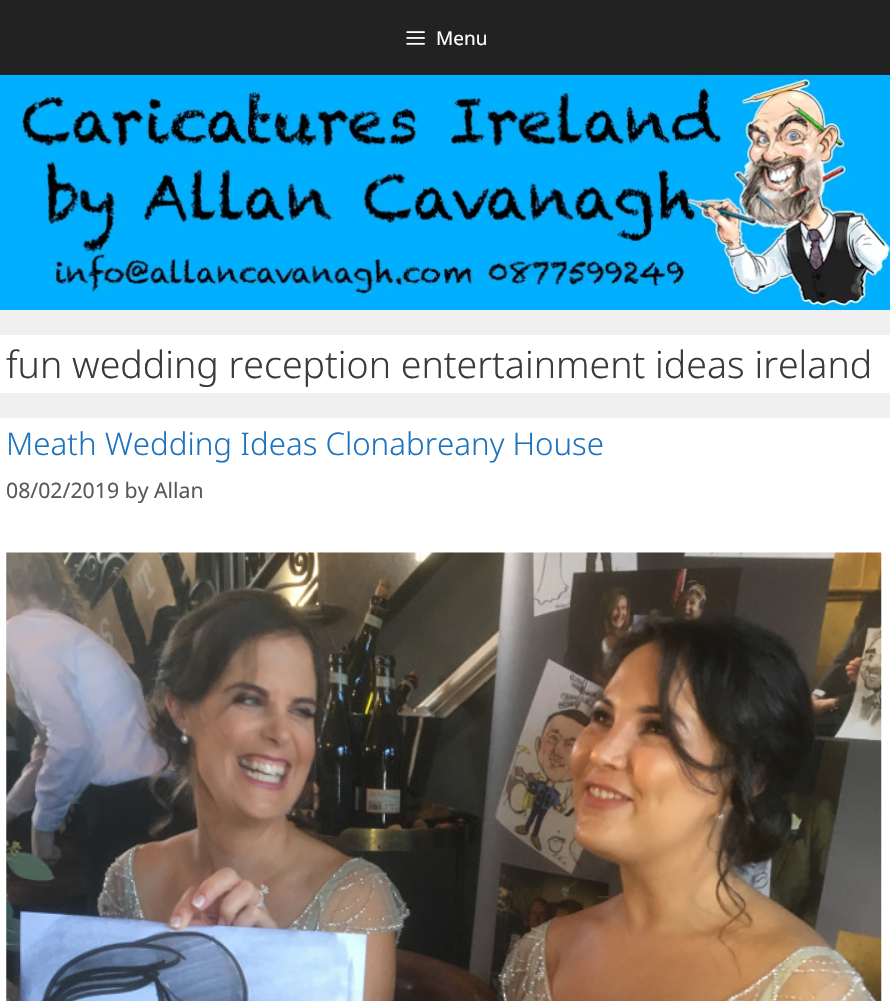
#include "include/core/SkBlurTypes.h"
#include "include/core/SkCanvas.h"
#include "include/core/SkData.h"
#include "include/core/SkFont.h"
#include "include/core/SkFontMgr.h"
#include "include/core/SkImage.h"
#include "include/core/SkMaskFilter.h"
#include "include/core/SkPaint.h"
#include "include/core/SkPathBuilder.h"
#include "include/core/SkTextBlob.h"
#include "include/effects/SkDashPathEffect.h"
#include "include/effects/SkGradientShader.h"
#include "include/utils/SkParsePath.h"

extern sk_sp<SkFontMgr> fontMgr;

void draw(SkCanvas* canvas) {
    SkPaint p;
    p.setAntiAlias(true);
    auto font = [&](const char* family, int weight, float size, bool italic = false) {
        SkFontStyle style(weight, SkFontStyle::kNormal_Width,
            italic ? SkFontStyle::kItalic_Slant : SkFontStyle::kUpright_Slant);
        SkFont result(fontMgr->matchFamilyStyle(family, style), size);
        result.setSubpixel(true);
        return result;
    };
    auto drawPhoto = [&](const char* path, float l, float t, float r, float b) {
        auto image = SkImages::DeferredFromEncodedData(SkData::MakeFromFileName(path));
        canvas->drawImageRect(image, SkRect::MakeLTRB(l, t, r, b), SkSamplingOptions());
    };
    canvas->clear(0xFFF0F0F0);
    p.setColor(0xFF222222);
    canvas->drawRect(SkRect::MakeLTRB(0, 0, 890, 75), p);
    drawPhoto("media/1.png", 406, 31, 425, 45);
    auto font1 = font("Noto Sans", 400, 19);
    p.setColor(0xFFFFFFFF);
    canvas->drawString("Menu", 436, 45, font1, p);
    p.setColor(0xFF00AFFF);
    canvas->drawRect(SkRect::MakeLTRB(0, 75, 890, 310), p);
    drawPhoto("media/2.png", 16, 75, 890, 309);
    p.setColor(0xFFFFFFFF);
    canvas->drawRect(SkRect::MakeLTRB(0, 335, 890, 393), p);
    auto font2 = font("Noto Sans", 300, 37.5f);
    p.setColor(0xFF3A3A3A);
    canvas->drawString("fun wedding reception entertainment ideas ireland", 6, 378, font2, p);
    p.setColor(0xFFFFFFFF);
    canvas->drawRect(SkRect::MakeLTRB(0, 418, 890, 1001), p);
    auto font3 = font("Noto Sans", 300, 31.25f);
    p.setColor(0xFF1E73BE);
    canvas->drawString("Meath Wedding Ideas Clonabreany House", 6, 455, font3, p);
    auto font4 = font("Noto Sans", 400, 21.25f);
    p.setColor(0xFF595959);
    canvas->drawString("08/02/2019 by Allan", 6, 498, font4, p);
    drawPhoto("media/3.png", 6, 552, 882, 1001);
}
